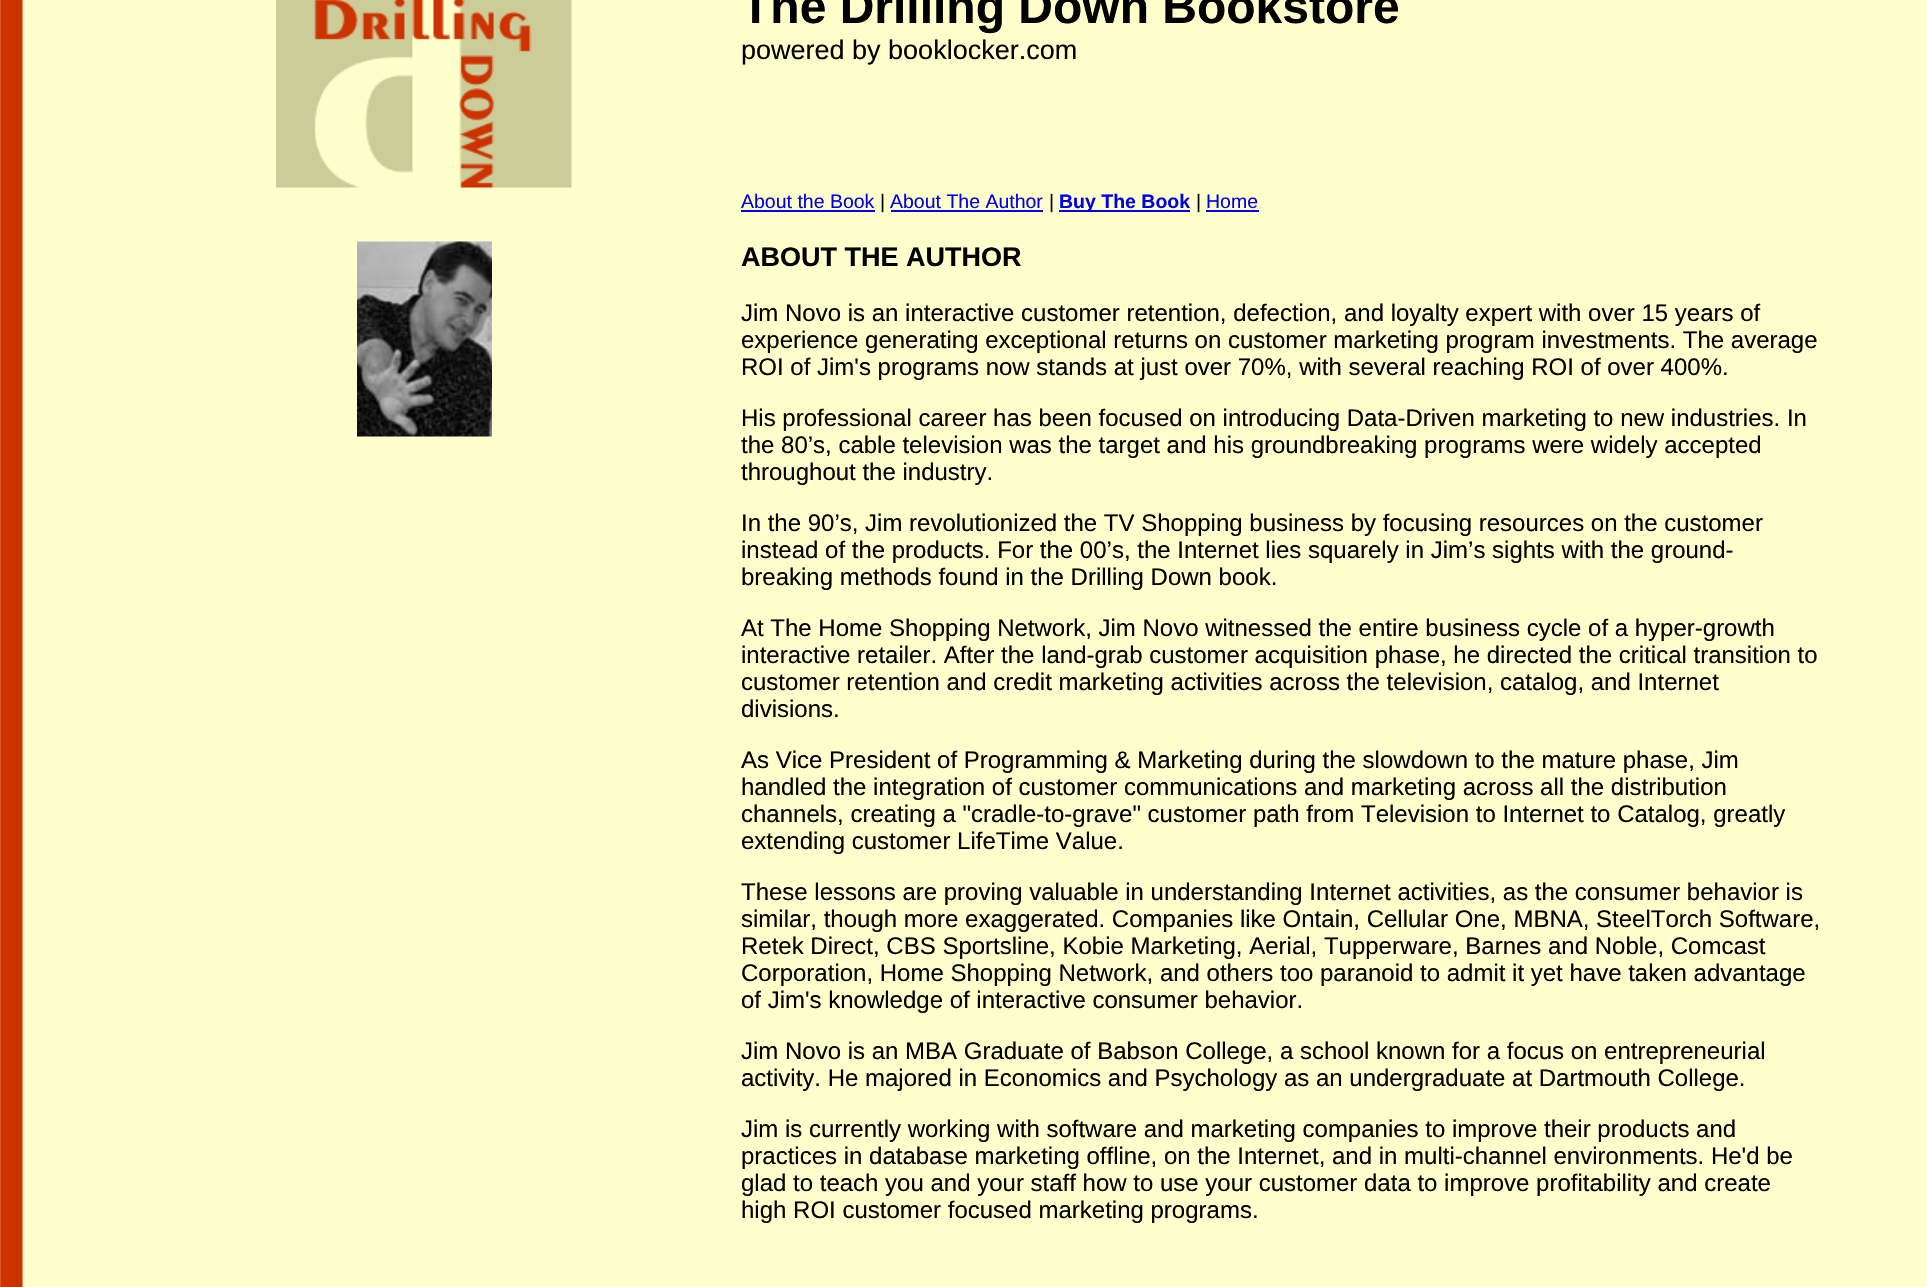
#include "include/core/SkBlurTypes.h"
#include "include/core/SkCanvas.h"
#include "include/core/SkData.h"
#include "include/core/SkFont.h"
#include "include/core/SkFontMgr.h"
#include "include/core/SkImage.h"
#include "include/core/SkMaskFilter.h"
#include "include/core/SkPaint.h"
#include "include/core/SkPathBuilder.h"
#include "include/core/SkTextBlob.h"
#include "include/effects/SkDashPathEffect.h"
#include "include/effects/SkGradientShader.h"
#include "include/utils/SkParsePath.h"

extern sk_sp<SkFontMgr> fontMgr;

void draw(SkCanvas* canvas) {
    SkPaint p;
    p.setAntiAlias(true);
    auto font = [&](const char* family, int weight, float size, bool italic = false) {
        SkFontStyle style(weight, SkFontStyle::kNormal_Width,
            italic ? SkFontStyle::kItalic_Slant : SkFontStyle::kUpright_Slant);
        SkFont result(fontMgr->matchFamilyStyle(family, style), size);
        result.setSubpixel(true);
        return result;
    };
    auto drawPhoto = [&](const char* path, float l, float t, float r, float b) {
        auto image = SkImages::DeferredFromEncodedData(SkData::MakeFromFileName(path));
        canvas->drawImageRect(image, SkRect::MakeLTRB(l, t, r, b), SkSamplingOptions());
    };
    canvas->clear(0xFFFFFFCC);
    drawPhoto("media/1.png", 0, 0, 741, 1287);
    drawPhoto("media/2.png", 276, 0, 572, 188);
    auto font1 = font("Liberation Sans", 700, 48);
    p.setColor(0xFF000000);
    canvas->drawString("The Drilling Down Bookstore", 741, 23, font1, p);
    auto font2 = font("Liberation Sans", 400, 27);
    canvas->drawString("powered by booklocker.com", 741, 59, font2, p);
    auto font3 = font("Liberation Sans", 400, 19.5f);
    p.setColor(0xFF0000EE);
    canvas->drawString("About the Book", 741, 208, font3, p);
    canvas->drawRect(SkRect::MakeLTRB(741, 210, 875, 212), p);
    p.setColor(0xFF000000);
    canvas->drawString("|", 880, 208, font3, p);
    p.setColor(0xFF0000EE);
    canvas->drawString("About The Author", 890, 208, font3, p);
    canvas->drawRect(SkRect::MakeLTRB(891, 210, 1043, 212), p);
    p.setColor(0xFF000000);
    canvas->drawString("|", 1049, 208, font3, p);
    p.setColor(0xFF0000EE);
    canvas->drawRect(SkRect::MakeLTRB(1059, 210, 1190, 212), p);
    auto font4 = font("Liberation Sans", 700, 19.5f);
    canvas->drawString("Buy The Book", 1059, 208, font4, p);
    p.setColor(0xFF000000);
    canvas->drawString("|", 1196, 208, font3, p);
    p.setColor(0xFF0000EE);
    canvas->drawString("Home", 1206, 208, font3, p);
    canvas->drawRect(SkRect::MakeLTRB(1206, 210, 1259, 212), p);
    drawPhoto("media/3.png", 357, 241, 492, 437);
    auto font5 = font("Liberation Sans", 700, 27);
    p.setColor(0xFF000000);
    canvas->drawString("ABOUT THE AUTHOR", 741, 266, font5, p);
    auto font6 = font("Liberation Sans", 400, 24);
    {
        const struct { const char* s; float x, y; } items[] = {
            {"Jim Novo is an interactive customer retention, defection, and loyalty expert with over 15 years of", 741, 321},
            {"experience generating exceptional returns on customer marketing program investments. The average", 741, 348},
            {"ROI of Jim's programs now stands at just over 70%, with several reaching ROI of over 400%.", 741, 375},
            {"His professional career has been focused on introducing Data-Driven marketing to new industries. In", 741, 426},
            {"the 80’s, cable television was the target and his groundbreaking programs were widely accepted", 741, 453},
            {"throughout the industry.", 741, 480},
            {"In the 90’s, Jim revolutionized the TV Shopping business by focusing resources on the customer", 741, 531},
            {"instead of the products. For the 00’s, the Internet lies squarely in Jim’s sights with the ground-", 741, 558},
            {"breaking methods found in the Drilling Down book.", 741, 585},
            {"At The Home Shopping Network, Jim Novo witnessed the entire business cycle of a hyper-growth", 741, 636},
            {"interactive retailer. After the land-grab customer acquisition phase, he directed the critical transition to", 741, 663},
            {"customer retention and credit marketing activities across the television, catalog, and Internet", 741, 690},
            {"divisions.", 741, 717},
            {"As Vice President of Programming & Marketing during the slowdown to the mature phase, Jim", 741, 768},
            {"handled the integration of customer communications and marketing across all the distribution", 741, 795},
            {"channels, creating a \"cradle-to-grave\" customer path from Television to Internet to Catalog, greatly", 741, 822},
            {"extending customer LifeTime Value.", 741, 849},
            {"These lessons are proving valuable in understanding Internet activities, as the consumer behavior is", 741, 900},
            {"similar, though more exaggerated. Companies like Ontain, Cellular One, MBNA, SteelTorch Software,", 741, 927},
            {"Retek Direct, CBS Sportsline, Kobie Marketing, Aerial, Tupperware, Barnes and Noble, Comcast", 741, 954},
            {"Corporation, Home Shopping Network, and others too paranoid to admit it yet have taken advantage", 741, 981},
            {"of Jim's knowledge of interactive consumer behavior.", 741, 1008},
            {"Jim Novo is an MBA Graduate of Babson College, a school known for a focus on entrepreneurial", 741, 1059},
            {"activity. He majored in Economics and Psychology as an undergraduate at Dartmouth College.", 741, 1086},
            {"Jim is currently working with software and marketing companies to improve their products and", 741, 1137},
            {"practices in database marketing offline, on the Internet, and in multi-channel environments. He'd be", 741, 1164},
            {"glad to teach you and your staff how to use your customer data to improve profitability and create", 741, 1191},
            {"high ROI customer focused marketing programs.", 741, 1218},
        };
        for (auto [s, x, y] : items) {
            canvas->drawString(s, x, y, font6, p);
        }
    }
}
